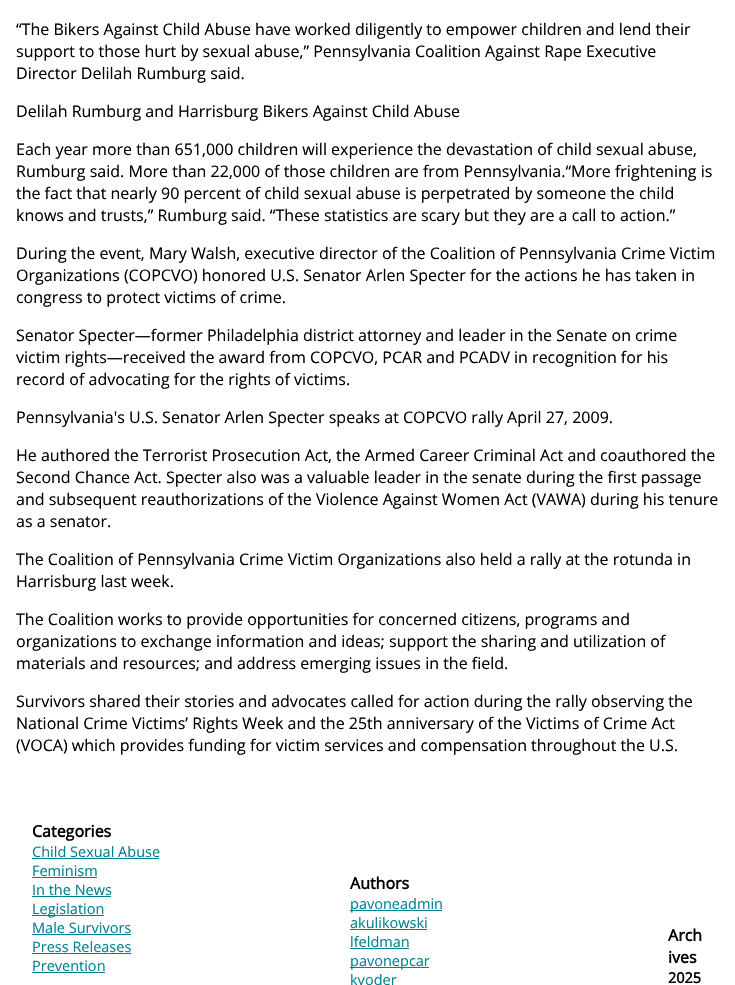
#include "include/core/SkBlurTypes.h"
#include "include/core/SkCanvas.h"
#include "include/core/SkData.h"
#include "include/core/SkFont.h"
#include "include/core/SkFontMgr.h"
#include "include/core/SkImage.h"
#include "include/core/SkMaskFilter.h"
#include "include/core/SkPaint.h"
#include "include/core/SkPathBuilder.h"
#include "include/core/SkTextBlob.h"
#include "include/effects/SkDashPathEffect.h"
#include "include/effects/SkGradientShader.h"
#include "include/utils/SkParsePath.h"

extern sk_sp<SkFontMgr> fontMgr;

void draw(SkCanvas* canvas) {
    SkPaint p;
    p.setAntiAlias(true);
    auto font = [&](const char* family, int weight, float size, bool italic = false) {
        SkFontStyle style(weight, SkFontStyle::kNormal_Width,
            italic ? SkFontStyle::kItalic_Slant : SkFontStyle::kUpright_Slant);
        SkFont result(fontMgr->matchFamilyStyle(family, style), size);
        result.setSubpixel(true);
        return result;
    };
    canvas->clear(0xFFFFFFFF);
    auto font1 = font("Open Sans", 400, 16);
    p.setColor(0xFF000000);
    {
        const struct { const char* s; float x, y; } items[] = {
            {"“The Bikers Against Child Abuse have worked diligently to empower children and lend their", 16, 35},
            {"support to those hurt by sexual abuse,” Pennsylvania Coalition Against Rape Executive", 16, 57},
            {"Director Delilah Rumburg said.", 16, 79},
            {"Delilah Rumburg and Harrisburg Bikers Against Child Abuse", 16, 117},
            {"Each year more than 651,000 children will experience the devastation of child sexual abuse,", 16, 155},
            {"Rumburg said. More than 22,000 of those children are from Pennsylvania.“More frightening is", 16, 177},
            {"the fact that nearly 90 percent of child sexual abuse is perpetrated by someone the child", 16, 199},
            {"knows and trusts,” Rumburg said. “These statistics are scary but they are a call to action.”", 16, 221},
            {"During the event, Mary Walsh, executive director of the Coalition of Pennsylvania Crime Victim", 16, 259},
            {"Organizations (COPCVO) honored U.S. Senator Arlen Specter for the actions he has taken in", 16, 281},
            {"congress to protect victims of crime.", 16, 303},
            {"Senator Specter—former Philadelphia district attorney and leader in the Senate on crime", 16, 341},
            {"victim rights—received the award from COPCVO, PCAR and PCADV in recognition for his", 16, 363},
            {"record of advocating for the rights of victims.", 16, 385},
            {"Pennsylvania's U.S. Senator Arlen Specter speaks at COPCVO rally April 27, 2009.", 16, 423},
            {"He authored the Terrorist Prosecution Act, the Armed Career Criminal Act and coauthored the", 16, 461},
            {"Second Chance Act. Specter also was a valuable leader in the senate during the first passage", 16, 483},
            {"and subsequent reauthorizations of the Violence Against Women Act (VAWA) during his tenure", 16, 505},
            {"as a senator.", 16, 527},
            {"The Coalition of Pennsylvania Crime Victim Organizations also held a rally at the rotunda in", 16, 565},
            {"Harrisburg last week.", 16, 587},
            {"The Coalition works to provide opportunities for concerned citizens, programs and", 16, 625},
            {"organizations to exchange information and ideas; support the sharing and utilization of", 16, 647},
            {"materials and resources; and address emerging issues in the field.", 16, 669},
            {"Survivors shared their stories and advocates called for action during the rally observing the", 16, 707},
            {"National Crime Victims’ Rights Week and the 25th anniversary of the Victims of Crime Act", 16, 729},
            {"(VOCA) which provides funding for victim services and compensation throughout the U.S.", 16, 751},
        };
        for (auto [s, x, y] : items) {
            canvas->drawString(s, x, y, font1, p);
        }
    }
    auto font2 = font("Open Sans", 700, 16);
    canvas->drawString("Categories", 32, 837, font2, p);
    auto font3 = font("Open Sans", 400, 14.5f);
    p.setColor(0xFF008190);
    canvas->drawString("Child Sexual Abuse", 32, 857, font3, p);
    canvas->drawRect(SkRect::MakeLTRB(32, 858, 159, 859), p);
    canvas->drawString("Feminism", 32, 876, font3, p);
    canvas->drawRect(SkRect::MakeLTRB(32, 877, 97, 878), p);
    canvas->drawString("In the News", 32, 895, font3, p);
    canvas->drawRect(SkRect::MakeLTRB(32, 896, 111, 897), p);
    canvas->drawRect(SkRect::MakeLTRB(32, 915, 104, 916), p);
    canvas->drawString("Legislation", 32, 914, font3, p);
    canvas->drawString("Male Survivors", 32, 933, font3, p);
    canvas->drawRect(SkRect::MakeLTRB(32, 934, 131, 935), p);
    canvas->drawString("Press Releases", 32, 952, font3, p);
    canvas->drawRect(SkRect::MakeLTRB(32, 953, 131, 954), p);
    canvas->drawString("Prevention", 32, 971, font3, p);
    canvas->drawRect(SkRect::MakeLTRB(32, 972, 105, 973), p);
    p.setColor(0xFF000000);
    canvas->drawString("Authors", 350, 889, font2, p);
    p.setColor(0xFF008190);
    canvas->drawRect(SkRect::MakeLTRB(350, 910, 442, 911), p);
    canvas->drawString("pavoneadmin", 350, 909, font3, p);
    canvas->drawString("akulikowski", 350, 928, font3, p);
    canvas->drawRect(SkRect::MakeLTRB(350, 929, 427, 930), p);
    canvas->drawString("lfeldman", 350, 947, font3, p);
    canvas->drawRect(SkRect::MakeLTRB(350, 948, 409, 949), p);
    canvas->drawRect(SkRect::MakeLTRB(350, 967, 429, 968), p);
    canvas->drawString("pavonepcar", 350, 966, font3, p);
    canvas->drawString("kyoder", 350, 985, font3, p);
    p.setColor(0xFF000000);
    canvas->drawString("Arch", 668, 941, font2, p);
    canvas->drawString("ives", 668, 963, font2, p);
    auto font4 = font("Open Sans", 700, 14.5f);
    canvas->drawString("2025", 668, 983, font4, p);
}
